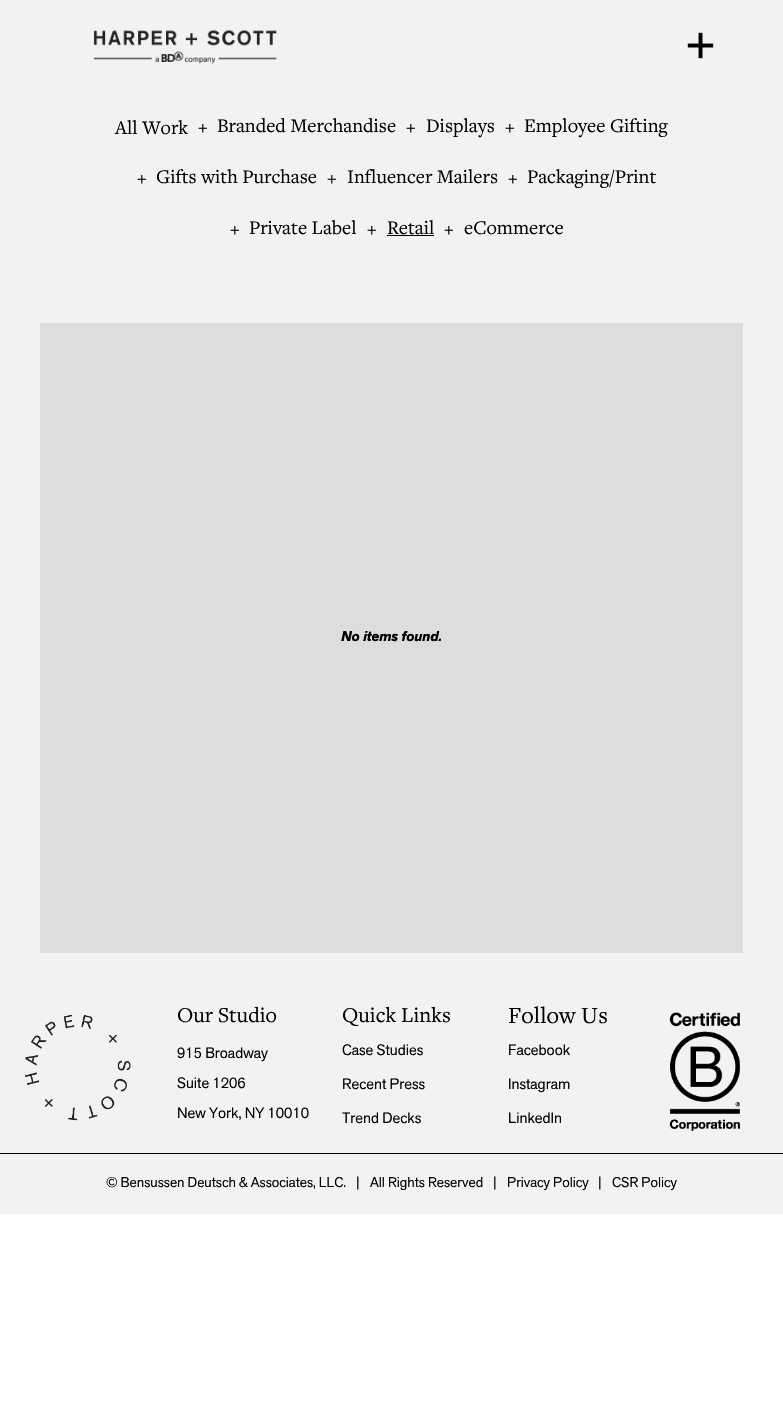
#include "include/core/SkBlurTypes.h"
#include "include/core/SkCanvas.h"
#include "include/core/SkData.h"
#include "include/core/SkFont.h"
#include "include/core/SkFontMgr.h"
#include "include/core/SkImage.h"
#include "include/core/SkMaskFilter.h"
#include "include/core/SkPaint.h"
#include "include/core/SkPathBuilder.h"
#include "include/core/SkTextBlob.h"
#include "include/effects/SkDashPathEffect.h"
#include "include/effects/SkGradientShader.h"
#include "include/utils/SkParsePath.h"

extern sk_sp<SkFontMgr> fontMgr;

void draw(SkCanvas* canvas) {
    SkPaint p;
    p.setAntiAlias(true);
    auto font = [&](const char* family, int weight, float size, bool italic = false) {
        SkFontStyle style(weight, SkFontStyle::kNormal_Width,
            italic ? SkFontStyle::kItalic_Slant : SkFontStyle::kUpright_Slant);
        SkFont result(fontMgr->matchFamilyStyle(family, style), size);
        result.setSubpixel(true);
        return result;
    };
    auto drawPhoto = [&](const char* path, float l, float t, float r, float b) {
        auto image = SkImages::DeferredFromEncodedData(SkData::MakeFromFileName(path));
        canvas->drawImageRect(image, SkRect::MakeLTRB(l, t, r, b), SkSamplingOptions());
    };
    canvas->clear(0xFFFFFFFF);
    p.setColor(0xFFF2F2F2);
    canvas->drawRect(SkRect::MakeLTRB(0, 0, 783, 1214), p);
    drawPhoto("media/1.png", 93, 30, 277, 64);
    drawPhoto("media/2.png", 687, 32, 714, 59);
    auto font1 = font("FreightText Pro", 400, 20);
    p.setColor(0xFF000000);
    {
        const struct { const char* s; float x, y; } items[] = {
            {"All Work", 115, 134},
            {"+", 198, 133},
            {"Branded Merchandise", 217, 132},
            {"+", 406, 133},
            {"Displays", 426, 132},
            {"+", 505, 133},
            {"Employee Gifting", 524, 132},
            {"+", 137, 184},
            {"Gifts with Purchase", 156, 183},
            {"+", 327, 184},
            {"Influencer Mailers", 347, 183},
            {"+", 508, 184},
            {"Packaging/Print", 527, 183},
            {"+", 230, 235},
            {"Private Label", 249, 234},
            {"+", 367, 235},
            {"Retail", 387, 234},
        };
        for (auto [s, x, y] : items) {
            canvas->drawString(s, x, y, font1, p);
        }
    }
    canvas->drawRect(SkRect::MakeLTRB(387, 235, 434, 236), p);
    canvas->drawString("+", 444, 235, font1, p);
    canvas->drawString("eCommerce", 464, 234, font1, p);
    p.setColor(0xFFDDDDDD);
    canvas->drawRect(SkRect::MakeLTRB(40, 323, 743, 953), p);
    auto font2 = font("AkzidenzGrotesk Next", 700, 14, true);
    p.setColor(0xFF000000);
    canvas->drawString("No items found.", 341, 641, font2, p);
    drawPhoto("media/3.png", 25, 1014, 131, 1121);
    auto font3 = font("FreightText Pro", 400, 22);
    canvas->drawString("Our Studio", 177, 1022, font3, p);
    auto font4 = font("AkzidenzGrotesk Next", 400, 15);
    {
        const struct { const char* s; float x, y; } items[] = {
            {"915 Broadway", 177, 1058},
            {"Suite 1206", 177, 1088},
            {"New York, NY 10010", 177, 1118},
        };
        for (auto [s, x, y] : items) {
            canvas->drawString(s, x, y, font4, p);
        }
    }
    canvas->drawString("Quick Links", 342, 1022, font3, p);
    {
        const struct { const char* s; float x, y; } items[] = {
            {"Case Studies", 342, 1055},
            {"Recent Press", 342, 1089},
            {"Trend Decks", 342, 1123},
        };
        for (auto [s, x, y] : items) {
            canvas->drawString(s, x, y, font4, p);
        }
    }
    auto font5 = font("FreightText Pro", 400, 24);
    canvas->drawString("Follow Us", 508, 1023, font5, p);
    {
        const struct { const char* s; float x, y; } items[] = {
            {"Facebook", 508, 1055},
            {"Instagram", 508, 1089},
            {"LinkedIn", 508, 1123},
        };
        for (auto [s, x, y] : items) {
            canvas->drawString(s, x, y, font4, p);
        }
    }
    drawPhoto("media/4.png", 669, 1012, 740, 1131);
    canvas->drawRect(SkRect::MakeLTRB(0, 1153, 783, 1154), p);
    auto font6 = font("AkzidenzGrotesk Next", 400, 14);
    {
        const struct { const char* s; float x, y; } items[] = {
            {"© Bensussen Deutsch & Associates, LLC.", 106, 1187},
            {"|", 356, 1187},
            {"All Rights Reserved", 370, 1187},
            {"|", 493, 1187},
            {"Privacy Policy", 507, 1187},
            {"|", 598, 1187},
            {"CSR Policy", 612, 1187},
        };
        for (auto [s, x, y] : items) {
            canvas->drawString(s, x, y, font6, p);
        }
    }
}
